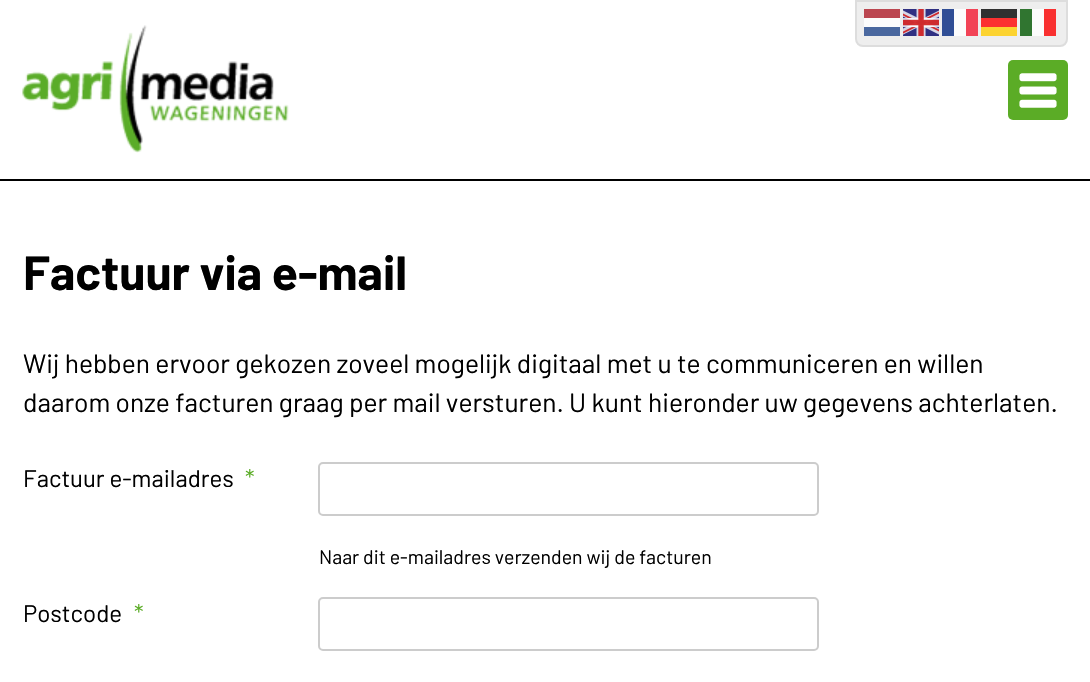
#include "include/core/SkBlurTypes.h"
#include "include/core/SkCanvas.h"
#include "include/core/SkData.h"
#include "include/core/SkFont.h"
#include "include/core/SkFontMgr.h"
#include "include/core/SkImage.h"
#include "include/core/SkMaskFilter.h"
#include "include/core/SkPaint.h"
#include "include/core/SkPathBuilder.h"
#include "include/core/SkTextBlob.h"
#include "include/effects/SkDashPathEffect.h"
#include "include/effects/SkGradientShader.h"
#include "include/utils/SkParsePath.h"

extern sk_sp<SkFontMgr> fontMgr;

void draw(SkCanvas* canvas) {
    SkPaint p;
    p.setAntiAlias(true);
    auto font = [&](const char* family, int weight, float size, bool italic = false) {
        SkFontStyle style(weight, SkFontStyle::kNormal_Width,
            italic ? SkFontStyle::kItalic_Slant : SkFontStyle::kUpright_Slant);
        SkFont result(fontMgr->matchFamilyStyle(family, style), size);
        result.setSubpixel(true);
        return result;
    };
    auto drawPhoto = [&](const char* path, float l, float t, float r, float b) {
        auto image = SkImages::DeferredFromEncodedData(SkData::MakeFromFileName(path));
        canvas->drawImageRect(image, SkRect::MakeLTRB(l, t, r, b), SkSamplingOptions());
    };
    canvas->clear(0xFFFFFFFF);
    p.setColor(0xFFEEEEEE);
    canvas->drawPath(SkPathBuilder().moveTo(856, 1).lineTo(1067, 1).lineTo(1067, 39).cubicTo(1067, 43, 1064, 46, 1060, 46).lineTo(863, 46).cubicTo(859, 46, 856, 43, 856, 39).close().detach(), p);
    p.setStyle(SkPaint::kStroke_Style);
    p.setStrokeWidth(2);
    p.setColor(0xFFDDDDDD);
    canvas->drawPath(SkPathBuilder().moveTo(856, 1).lineTo(1067, 1).lineTo(1067, 39).cubicTo(1067, 43, 1064, 46, 1060, 46).lineTo(863, 46).cubicTo(859, 46, 856, 43, 856, 39).close().detach(), p);
    p.setStyle(SkPaint::kFill_Style);
    p.setColor(0xFFBB4650);
    canvas->drawRect(SkRect::MakeLTRB(864, 9, 900, 18), p);
    drawPhoto("media/1.png", 903, 9, 939, 36);
    {
        const struct { float l, t, r, b; SkColor color; } items[] = {
            {942, 9, 954, 36, 0xFF304E95},
            {954, 9, 966, 36, 0xFFFCFCFC},
            {966, 9, 978, 36, 0xFFF24356},
            {981, 9, 1017, 18, 0xFF303030},
            {1020, 9, 1032, 36, 0xFF307530},
            {1032, 9, 1044, 36, 0xFFFCFCFC},
            {1044, 9, 1056, 36, 0xFFF93030},
            {864, 18, 900, 27, 0xFFFCFCFC},
            {981, 18, 1017, 27, 0xFFFC3030},
            {864, 27, 900, 36, 0xFF4A689F},
            {981, 27, 1017, 36, 0xFFFCD330},
            {0, 179, 1090, 181, 0xFF000000},
        };
        for (auto [l, t, r, b, color] : items) {
            p.setColor(color);
            canvas->drawRect(SkRect::MakeLTRB(l, t, r, b), p);
        }
    }
    drawPhoto("media/2.png", 22, 25, 289, 153);
    p.setColor(0xFF5BAC26);
    canvas->drawRoundRect(SkRect::MakeLTRB(1008, 60, 1068, 120), 5, 5, p);
    drawPhoto("media/3.png", 1019, 73, 1057, 108);
    auto font1 = font("Barlow", 700, 48);
    p.setColor(0xFF000000);
    canvas->drawString("Factuur via e-mail", 23, 290, font1, p);
    auto font2 = font("Barlow", 400, 26.4f);
    canvas->drawString("Wij hebben ervoor gekozen zoveel mogelijk digitaal met u te communiceren en willen", 23, 373, font2, p);
    canvas->drawString("daarom onze facturen graag per mail versturen. U kunt hieronder uw gegevens achterlaten.", 23, 412, font2, p);
    auto font3 = font("Barlow", 400, 24);
    canvas->drawString("Factuur e-mailadres", 23, 487, font3, p);
    p.setColor(0xFF5BAC26);
    canvas->drawString("*", 245, 487, font3, p);
    p.setStyle(SkPaint::kStroke_Style);
    p.setColor(0xFFCCCCCC);
    canvas->drawRoundRect(SkRect::MakeLTRB(319, 463, 818, 515), 4, 4, p);
    auto font4 = font("Barlow", 400, 19.5f);
    p.setStyle(SkPaint::kFill_Style);
    p.setColor(0xFF000000);
    canvas->drawString("Naar dit e-mailadres verzenden wij de facturen", 319, 564, font4, p);
    canvas->drawString("Postcode", 23, 622, font3, p);
    p.setColor(0xFF5BAC26);
    canvas->drawString("*", 134, 622, font3, p);
    p.setStyle(SkPaint::kStroke_Style);
    p.setColor(0xFFCCCCCC);
    canvas->drawRoundRect(SkRect::MakeLTRB(319, 598, 818, 650), 4, 4, p);
}
